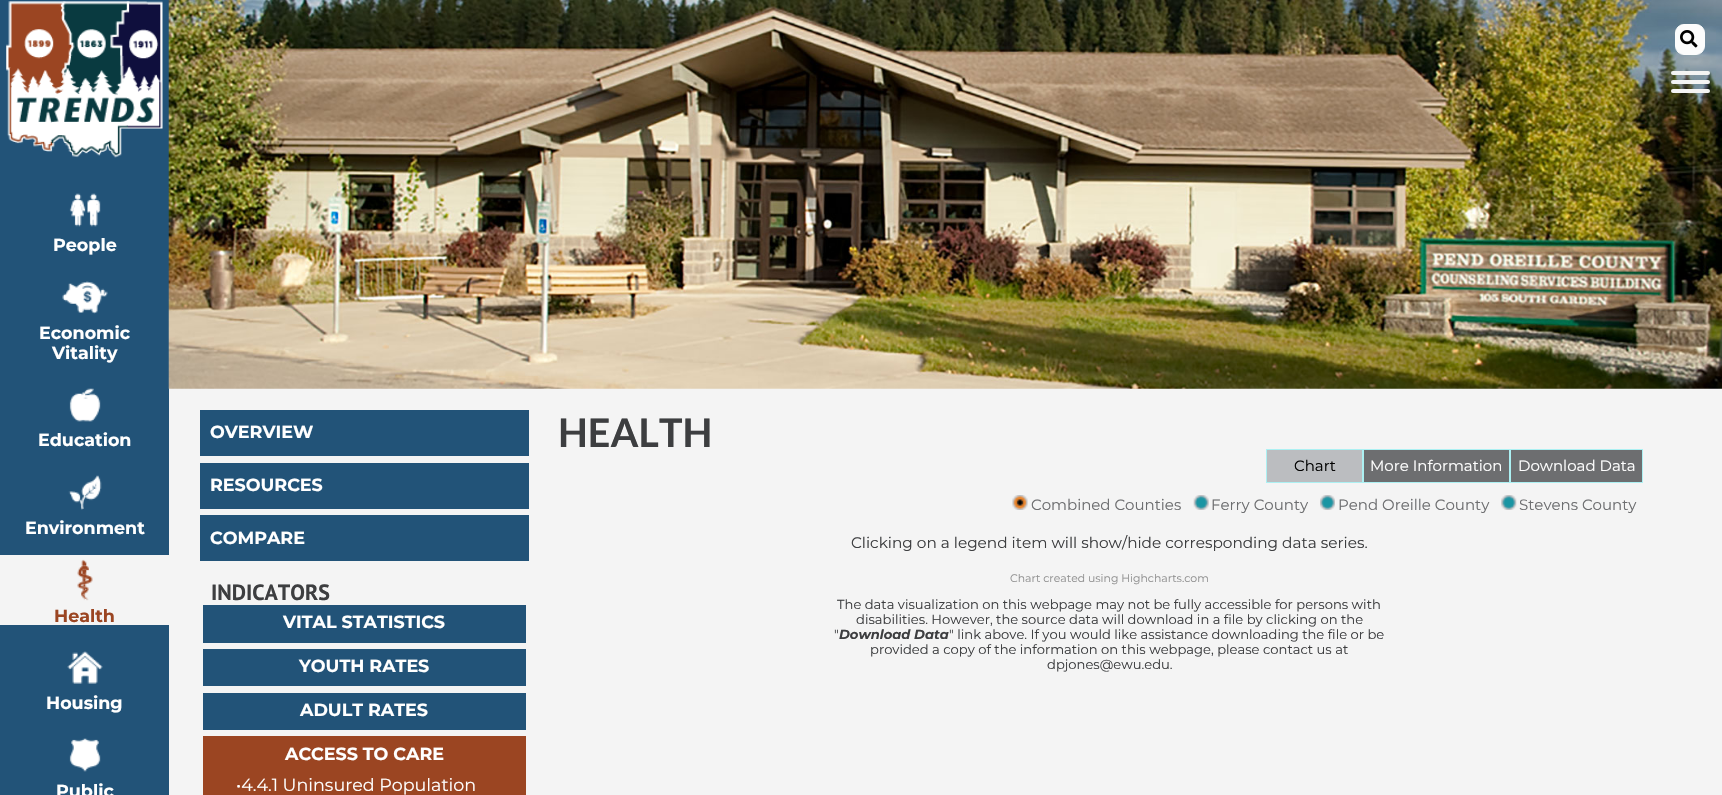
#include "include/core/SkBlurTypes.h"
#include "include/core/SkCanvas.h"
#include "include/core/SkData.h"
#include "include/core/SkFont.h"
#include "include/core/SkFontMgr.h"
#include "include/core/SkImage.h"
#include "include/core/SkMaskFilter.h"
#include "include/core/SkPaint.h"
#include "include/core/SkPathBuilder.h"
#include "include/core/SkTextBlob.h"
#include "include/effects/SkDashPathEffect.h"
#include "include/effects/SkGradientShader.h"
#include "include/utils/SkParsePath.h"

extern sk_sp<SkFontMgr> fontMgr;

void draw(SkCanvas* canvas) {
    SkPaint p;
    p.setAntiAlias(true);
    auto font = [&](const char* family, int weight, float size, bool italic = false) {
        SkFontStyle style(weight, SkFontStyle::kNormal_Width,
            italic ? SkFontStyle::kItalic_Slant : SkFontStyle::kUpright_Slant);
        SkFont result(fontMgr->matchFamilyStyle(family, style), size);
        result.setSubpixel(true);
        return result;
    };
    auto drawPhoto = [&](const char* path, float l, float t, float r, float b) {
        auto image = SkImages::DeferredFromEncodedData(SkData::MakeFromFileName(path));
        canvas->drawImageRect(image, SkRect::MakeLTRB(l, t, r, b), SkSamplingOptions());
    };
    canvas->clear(0xFFF4F4F4);
    p.setColor(0xFF225378);
    canvas->drawRect(SkRect::MakeLTRB(0, 0, 169, 795), p);
    drawPhoto("media/1.png", 6, 1, 163, 158);
    drawPhoto("media/2.png", 69, 193, 101, 227);
    auto font1 = font("Montserrat", 700, 17.5f);
    p.setColor(0xFFFFFFFF);
    canvas->drawString("People", 53, 251, font1, p);
    drawPhoto("media/3.png", 62, 281, 108, 314);
    canvas->drawString("Economic", 39, 339, font1, p);
    canvas->drawString("Vitality", 52, 359, font1, p);
    drawPhoto("media/4.png", 69, 388, 101, 422);
    canvas->drawString("Education", 38, 446, font1, p);
    drawPhoto("media/5.png", 68, 475, 102, 510);
    canvas->drawString("Environment", 25, 534, font1, p);
    p.setColor(0xFFF4F4F4);
    canvas->drawRect(SkRect::MakeLTRB(0, 555, 169, 625), p);
    drawPhoto("media/6.png", 77, 559, 93, 601);
    p.setColor(0xFF9B4522);
    canvas->drawString("Health", 54, 622, font1, p);
    drawPhoto("media/7.png", 67, 651, 103, 684);
    p.setColor(0xFFFFFFFF);
    canvas->drawString("Housing", 46, 709, font1, p);
    drawPhoto("media/8.png", 69, 738, 101, 772);
    canvas->drawString("Public", 56, 797, font1, p);
    drawPhoto("media/9.png", 168, 0, 1722, 389);
    p.setColor(0xFFFCFCFC);
    canvas->drawRoundRect(SkRect::MakeLTRB(1675.5f, 24.5f, 1704.5f, 54.5f), 8.5f, 8.5f, p);
    p.setStyle(SkPaint::kStroke_Style);
    p.setStrokeWidth(1);
    canvas->drawRoundRect(SkRect::MakeLTRB(1675.5f, 24.5f, 1704.5f, 54.5f), 8.5f, 8.5f, p);
    drawPhoto("media/10.png", 1680, 30, 1698, 48);
    p.setStyle(SkPaint::kFill_Style);
    p.setColor(0xFFF4F4F4);
    canvas->drawRoundRect(SkRect::MakeLTRB(1671, 80, 1710, 84), 2, 2, p);
    canvas->drawRoundRect(SkRect::MakeLTRB(1671, 71, 1710, 75), 2, 2, p);
    canvas->drawRoundRect(SkRect::MakeLTRB(1671, 89, 1710, 93), 2, 2, p);
    p.setColor(0xFF225378);
    canvas->drawRect(SkRect::MakeLTRB(200, 410, 529, 456), p);
    p.setColor(0xFFFFFFFF);
    canvas->drawString("OVERVIEW", 210, 438, font1, p);
    p.setColor(0xFF225378);
    canvas->drawRect(SkRect::MakeLTRB(200, 463, 529, 509), p);
    p.setColor(0xFFFFFFFF);
    canvas->drawString("RESOURCES", 210, 491, font1, p);
    p.setColor(0xFF225378);
    canvas->drawRect(SkRect::MakeLTRB(200, 515, 529, 561), p);
    p.setColor(0xFFFFFFFF);
    canvas->drawString("COMPARE", 210, 544, font1, p);
    auto font2 = font("PT Sans", 700, 22);
    p.setColor(0xFF3D3E40);
    canvas->drawString("INDICATORS", 211, 600, font2, p);
    p.setColor(0xFF225378);
    canvas->drawRect(SkRect::MakeLTRB(203, 605, 526, 643), p);
    p.setColor(0xFFFFFFFF);
    canvas->drawString("VITAL STATISTICS", 283, 628, font1, p);
    p.setColor(0xFF225378);
    canvas->drawRect(SkRect::MakeLTRB(203, 649, 526, 686), p);
    p.setColor(0xFFFFFFFF);
    canvas->drawString("YOUTH RATES", 299, 672, font1, p);
    p.setColor(0xFF225378);
    canvas->drawRect(SkRect::MakeLTRB(203, 693, 526, 730), p);
    p.setColor(0xFFFFFFFF);
    canvas->drawString("ADULT RATES", 300, 716, font1, p);
    p.setColor(0xFF9B4522);
    canvas->drawRect(SkRect::MakeLTRB(203, 736, 526, 795), p);
    p.setColor(0xFFFFFFFF);
    canvas->drawString("ACCESS TO CARE", 285, 760, font1, p);
    auto font3 = font("Montserrat", 400, 17.5f);
    canvas->drawString("•4.4.1 Uninsured Population", 236, 791, font3, p);
    auto font4 = font("Lato", 700, 39.5f);
    p.setColor(0xFF3D3E40);
    canvas->drawString("HEALTH", 558, 447, font4, p);
    p.setColor(0xFFBBBDC0);
    canvas->drawRect(SkRect::MakeLTRB(1266.5f, 449.5f, 1362.5f, 482.5f), p);
    p.setStyle(SkPaint::kStroke_Style);
    p.setColor(0xFFACF0F2);
    canvas->drawRect(SkRect::MakeLTRB(1266.5f, 449.5f, 1362.5f, 482.5f), p);
    auto font5 = font("Montserrat", 400, 15);
    p.setStyle(SkPaint::kFill_Style);
    p.setColor(0xFF000000);
    canvas->drawString("Chart", 1294, 471, font5, p);
    p.setColor(0xFF6D6E70);
    canvas->drawRect(SkRect::MakeLTRB(1363.5f, 449.5f, 1509.5f, 482.5f), p);
    p.setStyle(SkPaint::kStroke_Style);
    p.setColor(0xFFACF0F2);
    canvas->drawRect(SkRect::MakeLTRB(1363.5f, 449.5f, 1509.5f, 482.5f), p);
    p.setStyle(SkPaint::kFill_Style);
    p.setColor(0xFFFFFFFF);
    canvas->drawString("More Information", 1370, 471, font5, p);
    p.setColor(0xFF6D6E70);
    canvas->drawRect(SkRect::MakeLTRB(1510.5f, 449.5f, 1642.5f, 482.5f), p);
    p.setStyle(SkPaint::kStroke_Style);
    p.setColor(0xFFACF0F2);
    canvas->drawRect(SkRect::MakeLTRB(1510.5f, 449.5f, 1642.5f, 482.5f), p);
    p.setStyle(SkPaint::kFill_Style);
    p.setColor(0xFFFFFFFF);
    canvas->drawString("Download Data", 1518, 471, font5, p);
    drawPhoto("media/11.png", 1012, 495, 1028, 510);
    p.setColor(0xFF6D6E70);
    canvas->drawString("Combined Counties", 1031, 510, font5, p);
    drawPhoto("media/12.png", 1193, 495, 1209, 510);
    canvas->drawString("Ferry County", 1211, 510, font5, p);
    drawPhoto("media/13.png", 1320, 495, 1335, 510);
    canvas->drawString("Pend Oreille County", 1338, 510, font5, p);
    drawPhoto("media/14.png", 1501, 495, 1517, 510);
    canvas->drawString("Stevens County", 1519, 510, font5, p);
    auto font6 = font("Montserrat", 400, 15.3f);
    p.setColor(0xFF3D3E40);
    canvas->drawString("Clicking on a legend item will show/hide corresponding data series.", 851, 548, font6, p);
    auto font7 = font("Montserrat", 400, 10.9f);
    p.setColor(0xFF909090);
    canvas->drawString("Chart created using Highcharts.com", 1010, 582, font7, p);
    auto font8 = font("Montserrat", 400, 13.1f);
    p.setColor(0xFF3D3E40);
    {
        const struct { const char* s; float x, y; } items[] = {
            {"The data visualization on this webpage may not be fully accessible for persons with", 837, 609},
            {"disabilities. However, the source data will download in a file by clicking on the", 856, 624},
            {"\"", 834, 639},
        };
        for (auto [s, x, y] : items) {
            canvas->drawString(s, x, y, font8, p);
        }
    }
    auto font9 = font("Montserrat", 700, 13.1f, true);
    canvas->drawString("Download Data", 839, 639, font9, p);
    {
        const struct { const char* s; float x, y; } items[] = {
            {"\" link above. If you would like assistance downloading the file or be", 949, 639},
            {"provided a copy of the information on this webpage, please contact us at", 870, 654},
            {"dpjones@ewu.edu.", 1047, 669},
        };
        for (auto [s, x, y] : items) {
            canvas->drawString(s, x, y, font8, p);
        }
    }
}
